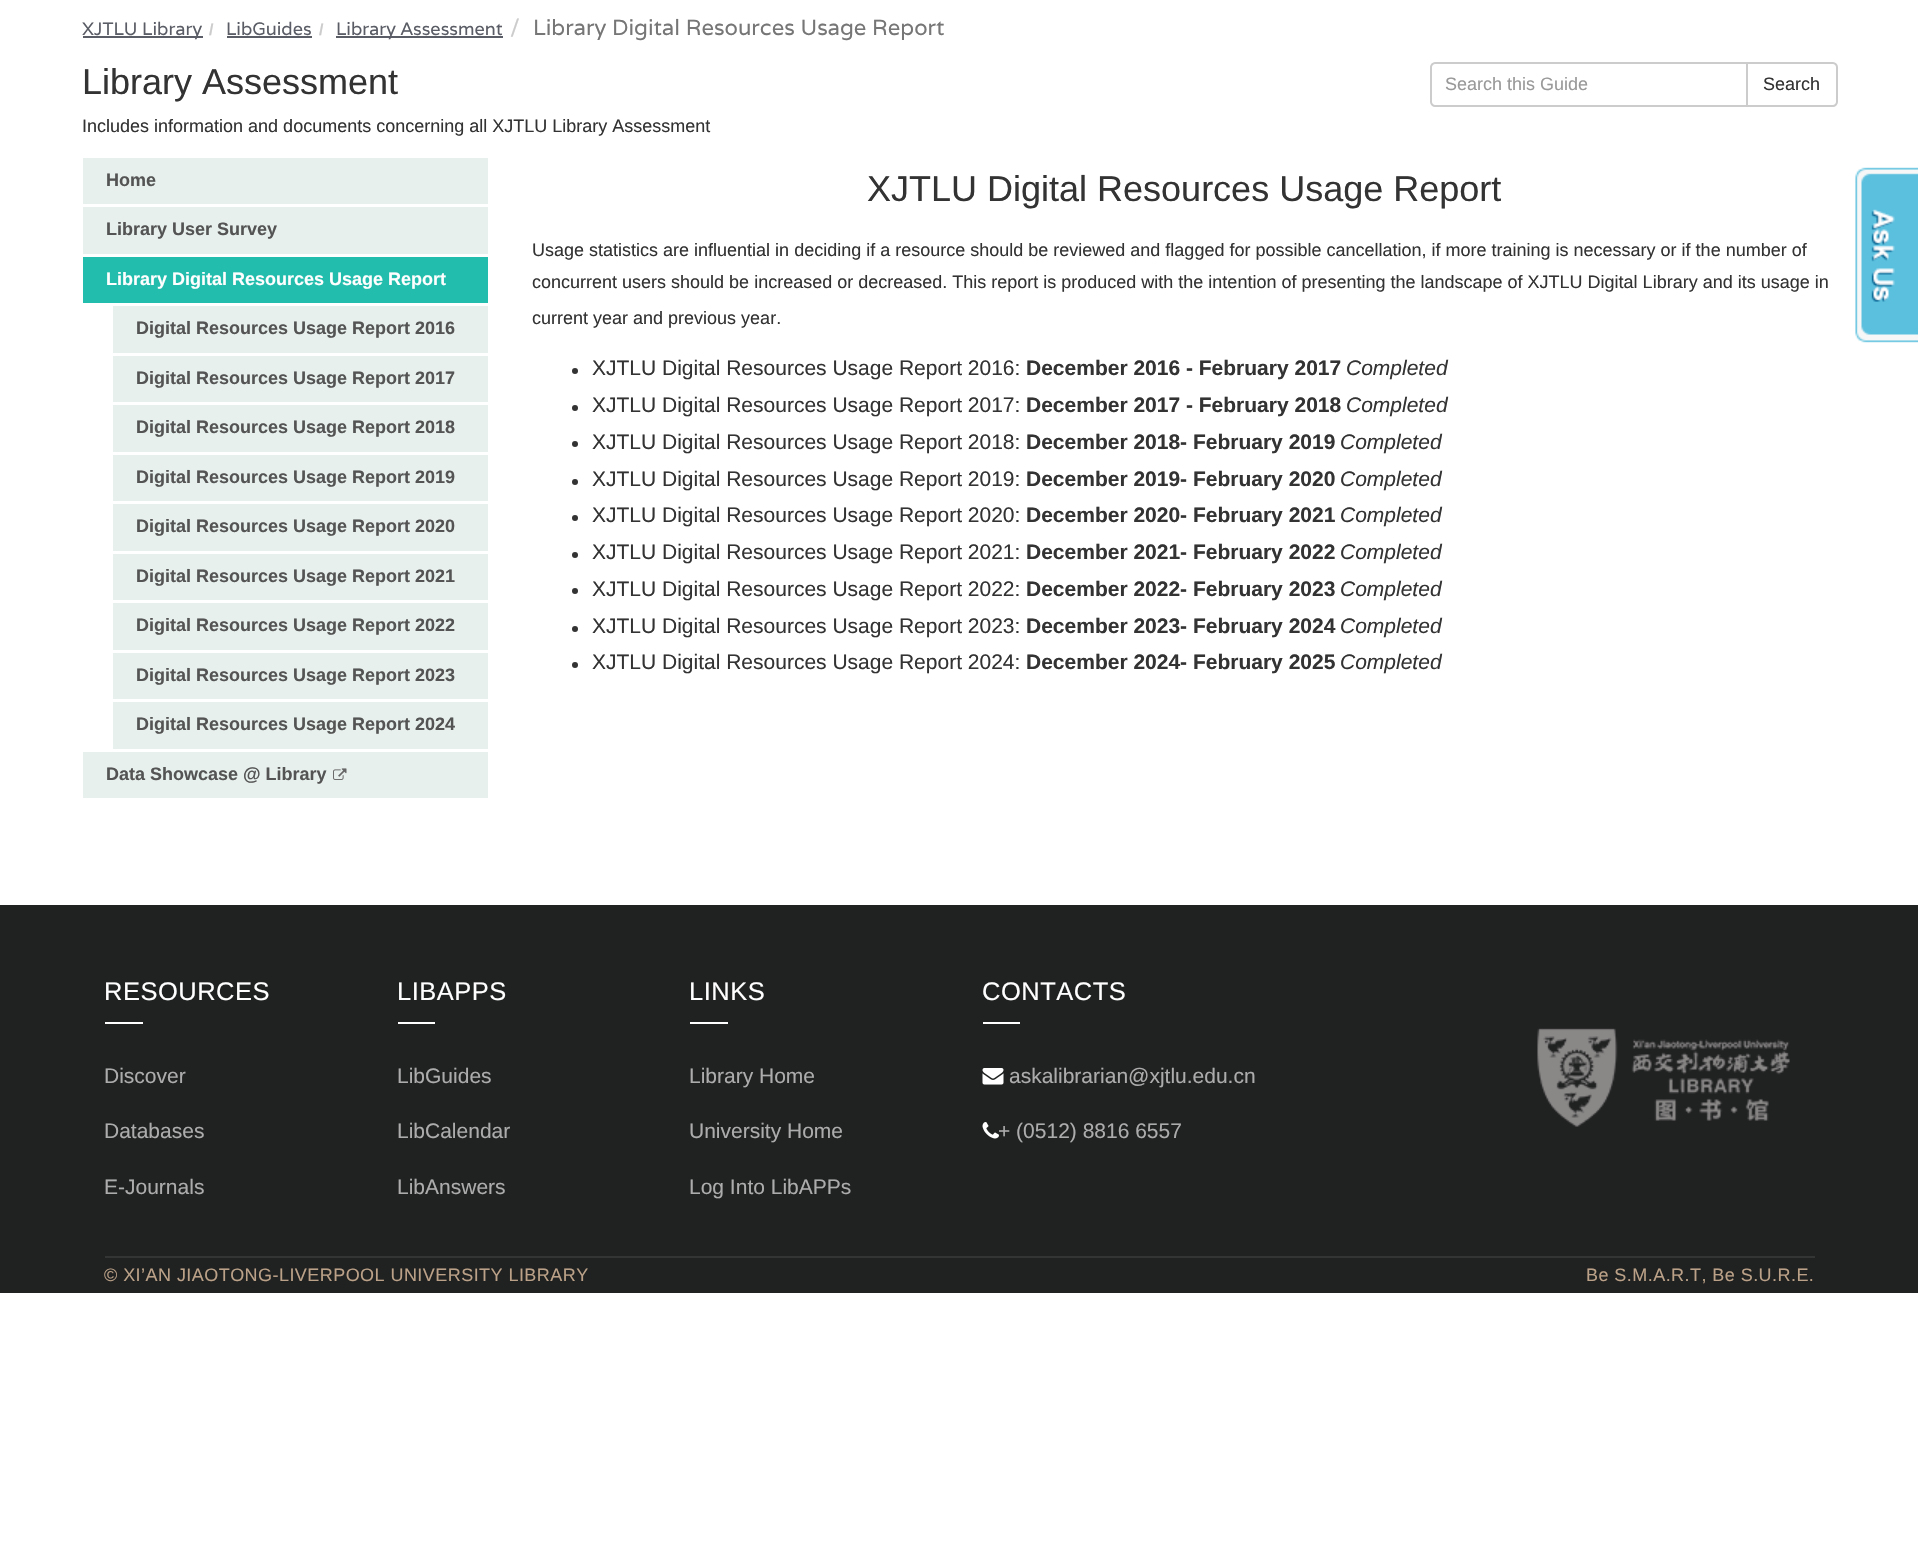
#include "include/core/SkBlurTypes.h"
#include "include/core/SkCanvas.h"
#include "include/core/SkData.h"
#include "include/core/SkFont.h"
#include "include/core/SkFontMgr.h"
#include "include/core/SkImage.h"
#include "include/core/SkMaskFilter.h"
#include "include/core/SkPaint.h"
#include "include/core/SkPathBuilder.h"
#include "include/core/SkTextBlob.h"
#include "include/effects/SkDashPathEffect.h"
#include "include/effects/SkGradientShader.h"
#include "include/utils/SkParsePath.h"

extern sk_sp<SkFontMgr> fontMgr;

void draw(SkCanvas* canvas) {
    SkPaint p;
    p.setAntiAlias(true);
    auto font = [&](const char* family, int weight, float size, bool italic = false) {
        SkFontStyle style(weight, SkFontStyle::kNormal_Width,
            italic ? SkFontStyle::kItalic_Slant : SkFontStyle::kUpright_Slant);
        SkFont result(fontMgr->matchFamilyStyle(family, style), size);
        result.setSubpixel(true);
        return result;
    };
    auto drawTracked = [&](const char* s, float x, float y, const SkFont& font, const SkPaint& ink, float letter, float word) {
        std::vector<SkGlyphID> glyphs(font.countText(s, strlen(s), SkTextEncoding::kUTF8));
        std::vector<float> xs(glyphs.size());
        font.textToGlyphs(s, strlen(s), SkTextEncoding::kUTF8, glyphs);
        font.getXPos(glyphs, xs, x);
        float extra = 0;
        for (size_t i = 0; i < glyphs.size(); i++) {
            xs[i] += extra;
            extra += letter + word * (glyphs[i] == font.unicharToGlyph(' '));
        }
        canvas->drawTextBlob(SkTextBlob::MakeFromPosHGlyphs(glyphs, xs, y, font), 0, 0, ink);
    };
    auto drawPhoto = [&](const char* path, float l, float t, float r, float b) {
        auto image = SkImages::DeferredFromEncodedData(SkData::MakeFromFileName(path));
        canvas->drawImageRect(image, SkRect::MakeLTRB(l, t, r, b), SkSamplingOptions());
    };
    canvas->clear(0xFFFFFFFF);
    p.setColor(0xFF5B5D66);
    canvas->drawRect(SkRect::MakeLTRB(83, 36, 203, 38), p);
    auto font1 = font("Varela", 400, 18);
    canvas->drawString("XJTLU Library", 82, 35, font1, p);
    auto font2 = font("Liberation Sans", 700, 16);
    p.setColor(0xFFCCCCCC);
    canvas->drawString("/", 209, 35, font2, p);
    p.setColor(0xFF5B5D66);
    canvas->drawString("LibGuides", 226, 35, font1, p);
    canvas->drawRect(SkRect::MakeLTRB(227, 36, 312, 38), p);
    p.setColor(0xFFCCCCCC);
    canvas->drawString("/", 319, 35, font2, p);
    p.setColor(0xFF5B5D66);
    canvas->drawRect(SkRect::MakeLTRB(336, 36, 503, 38), p);
    canvas->drawString("Library Assessment", 336, 35, font1, p);
    auto font3 = font("Varela", 400, 22);
    p.setColor(0xFFCCCCCC);
    canvas->drawString("/", 510, 35, font3, p);
    p.setColor(0xFF767676);
    canvas->drawString("Library Digital Resources Usage Report", 533, 35, font3, p);
    auto font4 = font("Liberation Sans", 400, 36);
    p.setColor(0xFF333333);
    canvas->drawString("Library Assessment", 82, 94, font4, p);
    auto font5 = font("Liberation Sans", 400, 18);
    canvas->drawString("Includes information and documents concerning all XJTLU Library Assessment", 82, 132, font5, p);
    p.setStyle(SkPaint::kStroke_Style);
    p.setStrokeWidth(2);
    p.setColor(0xFFCCCCCC);
    canvas->drawPath(SkPathBuilder().moveTo(1435, 63).lineTo(1747, 63).lineTo(1747, 106).lineTo(1435, 106).cubicTo(1433, 106, 1431, 104, 1431, 102).lineTo(1431, 67).cubicTo(1431, 65, 1433, 63, 1435, 63).close().detach(), p);
    p.setStyle(SkPaint::kFill_Style);
    p.setColor(0xFF999999);
    canvas->drawString("Search this Guide", 1445, 90, font5, p);
    p.setColor(0xFFFFFFFF);
    canvas->drawPath(SkPathBuilder().moveTo(1747, 63).lineTo(1833, 63).cubicTo(1835, 63, 1837, 65, 1837, 67).lineTo(1837, 102).cubicTo(1837, 104, 1835, 106, 1833, 106).lineTo(1747, 106).close().detach(), p);
    p.setStyle(SkPaint::kStroke_Style);
    p.setColor(0xFFCCCCCC);
    canvas->drawPath(SkPathBuilder().moveTo(1747, 63).lineTo(1833, 63).cubicTo(1835, 63, 1837, 65, 1837, 67).lineTo(1837, 102).cubicTo(1837, 104, 1835, 106, 1833, 106).lineTo(1747, 106).close().detach(), p);
    p.setStyle(SkPaint::kFill_Style);
    p.setColor(0xFF333333);
    canvas->drawString("Search", 1763, 90, font5, p);
    p.setColor(0xFFE7F0ED);
    canvas->drawRect(SkRect::MakeLTRB(83, 158, 488, 204), p);
    auto font6 = font("Liberation Sans", 700, 18);
    p.setColor(0xFF545454);
    canvas->drawString("Home", 106, 186, font6, p);
    p.setColor(0xFFE7F0ED);
    canvas->drawRect(SkRect::MakeLTRB(83, 207, 488, 254), p);
    p.setColor(0xFF545454);
    canvas->drawString("Library User Survey", 106, 235, font6, p);
    p.setColor(0xFF22BDAD);
    canvas->drawRect(SkRect::MakeLTRB(83, 257, 488, 303), p);
    p.setColor(0xFFFFFFFF);
    canvas->drawString("Library Digital Resources Usage Report", 106, 285, font6, p);
    p.setColor(0xFFE7F0ED);
    canvas->drawRect(SkRect::MakeLTRB(113, 306, 488, 353), p);
    p.setColor(0xFF545454);
    canvas->drawString("Digital Resources Usage Report 2016", 136, 334, font6, p);
    p.setColor(0xFFE7F0ED);
    canvas->drawRect(SkRect::MakeLTRB(113, 356, 488, 402), p);
    p.setColor(0xFF545454);
    canvas->drawString("Digital Resources Usage Report 2017", 136, 384, font6, p);
    p.setColor(0xFFE7F0ED);
    canvas->drawRect(SkRect::MakeLTRB(113, 405, 488, 452), p);
    p.setColor(0xFF545454);
    canvas->drawString("Digital Resources Usage Report 2018", 136, 433, font6, p);
    p.setColor(0xFFE7F0ED);
    canvas->drawRect(SkRect::MakeLTRB(113, 455, 488, 501), p);
    p.setColor(0xFF545454);
    canvas->drawString("Digital Resources Usage Report 2019", 136, 483, font6, p);
    p.setColor(0xFFE7F0ED);
    canvas->drawRect(SkRect::MakeLTRB(113, 504, 488, 551), p);
    p.setColor(0xFF545454);
    canvas->drawString("Digital Resources Usage Report 2020", 136, 532, font6, p);
    p.setColor(0xFFE7F0ED);
    canvas->drawRect(SkRect::MakeLTRB(113, 554, 488, 600), p);
    p.setColor(0xFF545454);
    canvas->drawString("Digital Resources Usage Report 2021", 136, 582, font6, p);
    p.setColor(0xFFE7F0ED);
    canvas->drawRect(SkRect::MakeLTRB(113, 603, 488, 650), p);
    p.setColor(0xFF545454);
    canvas->drawString("Digital Resources Usage Report 2022", 136, 631, font6, p);
    p.setColor(0xFFE7F0ED);
    canvas->drawRect(SkRect::MakeLTRB(113, 653, 488, 699), p);
    p.setColor(0xFF545454);
    canvas->drawString("Digital Resources Usage Report 2023", 136, 681, font6, p);
    p.setColor(0xFFE7F0ED);
    canvas->drawRect(SkRect::MakeLTRB(113, 702, 488, 749), p);
    p.setColor(0xFF545454);
    canvas->drawString("Digital Resources Usage Report 2024", 136, 730, font6, p);
    p.setColor(0xFFE7F0ED);
    canvas->drawRect(SkRect::MakeLTRB(83, 752, 488, 798), p);
    p.setColor(0xFF545454);
    canvas->drawString("Data Showcase @ Library", 106, 780, font6, p);
    drawPhoto("media/1.png", 333, 768, 347, 780);
    p.setColor(0xFF333333);
    canvas->drawString("XJTLU Digital Resources Usage Report", 867, 201, font4, p);
    {
        const struct { const char* s; float x, y; } items[] = {
            {"Usage statistics are influential in deciding if a resource should be reviewed and flagged for possible cancellation, if more training is necessary or if the number of", 532, 256},
            {"concurrent users should be increased or decreased. This report is produced with the intention of presenting the landscape of XJTLU Digital Library and its usage in", 532, 288},
            {"current year and previous year.", 532, 324},
        };
        for (auto [s, x, y] : items) {
            canvas->drawString(s, x, y, font5, p);
        }
    }
    canvas->drawCircle(575, 371, 3, p);
    auto font7 = font("Liberation Sans", 400, 21);
    canvas->drawString("XJTLU Digital Resources Usage Report 2016:", 592, 375, font7, p);
    auto font8 = font("Liberation Sans", 700, 21);
    canvas->drawString("December 2016 - February 2017", 1026, 375, font8, p);
    auto font9 = font("Liberation Sans", 400, 21, true);
    canvas->drawString("Completed", 1346, 375, font9, p);
    canvas->drawCircle(575, 408, 3, p);
    canvas->drawString("XJTLU Digital Resources Usage Report 2017:", 592, 412, font7, p);
    canvas->drawString("December 2017 - February 2018", 1026, 412, font8, p);
    canvas->drawString("Completed", 1346, 412, font9, p);
    canvas->drawCircle(575, 444, 3, p);
    canvas->drawString("XJTLU Digital Resources Usage Report 2018:", 592, 449, font7, p);
    canvas->drawString("December 2018- February 2019", 1026, 449, font8, p);
    canvas->drawString("Completed", 1340, 449, font9, p);
    canvas->drawCircle(575, 482, 3, p);
    canvas->drawString("XJTLU Digital Resources Usage Report 2019:", 592, 486, font7, p);
    canvas->drawString("December 2019- February 2020", 1026, 486, font8, p);
    canvas->drawString("Completed", 1340, 486, font9, p);
    canvas->drawCircle(575, 518, 3, p);
    canvas->drawString("XJTLU Digital Resources Usage Report 2020:", 592, 522, font7, p);
    canvas->drawString("December 2020- February 2021", 1026, 522, font8, p);
    canvas->drawString("Completed", 1340, 522, font9, p);
    canvas->drawCircle(575, 555, 3, p);
    canvas->drawString("XJTLU Digital Resources Usage Report 2021:", 592, 559, font7, p);
    canvas->drawString("December 2021- February 2022", 1026, 559, font8, p);
    canvas->drawString("Completed", 1340, 559, font9, p);
    canvas->drawCircle(575, 591, 3, p);
    canvas->drawString("XJTLU Digital Resources Usage Report 2022:", 592, 596, font7, p);
    canvas->drawString("December 2022- February 2023", 1026, 596, font8, p);
    canvas->drawString("Completed", 1340, 596, font9, p);
    canvas->drawCircle(575, 629, 3, p);
    canvas->drawString("XJTLU Digital Resources Usage Report 2023:", 592, 633, font7, p);
    canvas->drawString("December 2023- February 2024", 1026, 633, font8, p);
    canvas->drawString("Completed", 1340, 633, font9, p);
    canvas->drawCircle(575, 665, 3, p);
    canvas->drawString("XJTLU Digital Resources Usage Report 2024:", 592, 669, font7, p);
    canvas->drawString("December 2024- February 2025", 1026, 669, font8, p);
    canvas->drawString("Completed", 1340, 669, font9, p);
    drawPhoto("media/2.png", 1855, 167, 1918, 343);
    p.setColor(0xFF202121);
    canvas->drawRect(SkRect::MakeLTRB(0, 905, 1918, 1293), p);
    auto font10 = font("Liberation Sans", 400, 25.5f);
    p.setColor(0xFFFFFFFF);
    drawTracked("RESOURCES", 104, 1000, font10, p, 0.5f, 0);
    canvas->drawRect(SkRect::MakeLTRB(105, 1022, 143, 1024), p);
    p.setColor(0xFFACACAC);
    {
        const struct { const char* s; float x, y; } items[] = {
            {"Discover", 104, 1083},
            {"Databases", 104, 1138},
            {"E-Journals", 104, 1194},
        };
        for (auto [s, x, y] : items) {
            canvas->drawString(s, x, y, font7, p);
        }
    }
    p.setColor(0xFFFFFFFF);
    drawTracked("LIBAPPS", 397, 1000, font10, p, 0.5f, 0);
    canvas->drawRect(SkRect::MakeLTRB(398, 1022, 435, 1024), p);
    p.setColor(0xFFACACAC);
    {
        const struct { const char* s; float x, y; } items[] = {
            {"LibGuides", 397, 1083},
            {"LibCalendar", 397, 1138},
            {"LibAnswers", 397, 1194},
        };
        for (auto [s, x, y] : items) {
            canvas->drawString(s, x, y, font7, p);
        }
    }
    p.setColor(0xFFFFFFFF);
    drawTracked("LINKS", 689, 1000, font10, p, 0.5f, 0);
    canvas->drawRect(SkRect::MakeLTRB(690, 1022, 728, 1024), p);
    p.setColor(0xFFACACAC);
    {
        const struct { const char* s; float x, y; } items[] = {
            {"Library Home", 689, 1083},
            {"University Home", 689, 1138},
            {"Log Into LibAPPs", 689, 1194},
        };
        for (auto [s, x, y] : items) {
            canvas->drawString(s, x, y, font7, p);
        }
    }
    p.setColor(0xFFFFFFFF);
    drawTracked("CONTACTS", 982, 1000, font10, p, 0.5f, 0);
    canvas->drawRect(SkRect::MakeLTRB(983, 1022, 1020, 1024), p);
    drawPhoto("media/3.png", 982, 1068, 1004, 1085);
    p.setColor(0xFFACACAC);
    canvas->drawString("askalibrarian@xjtlu.edu.cn", 1009, 1083, font7, p);
    drawPhoto("media/4.png", 982, 1122, 999, 1139);
    canvas->drawString("+ (0512) 8816 6557", 998, 1138, font7, p);
    drawPhoto("media/5.png", 1537, 1028, 1790, 1127);
    p.setColor(0xFF333434);
    canvas->drawRect(SkRect::MakeLTRB(105, 1256, 1815, 1258), p);
    p.setColor(0xFFBAA187);
    drawTracked("© XI’AN JIAOTONG-LIVERPOOL UNIVERSITY LIBRARY", 104, 1281, font5, p, 0.45f, 0);
    drawTracked("Be S.M.A.R.T, Be S.U.R.E.", 1586, 1281, font5, p, 0.45f, 0);
}
